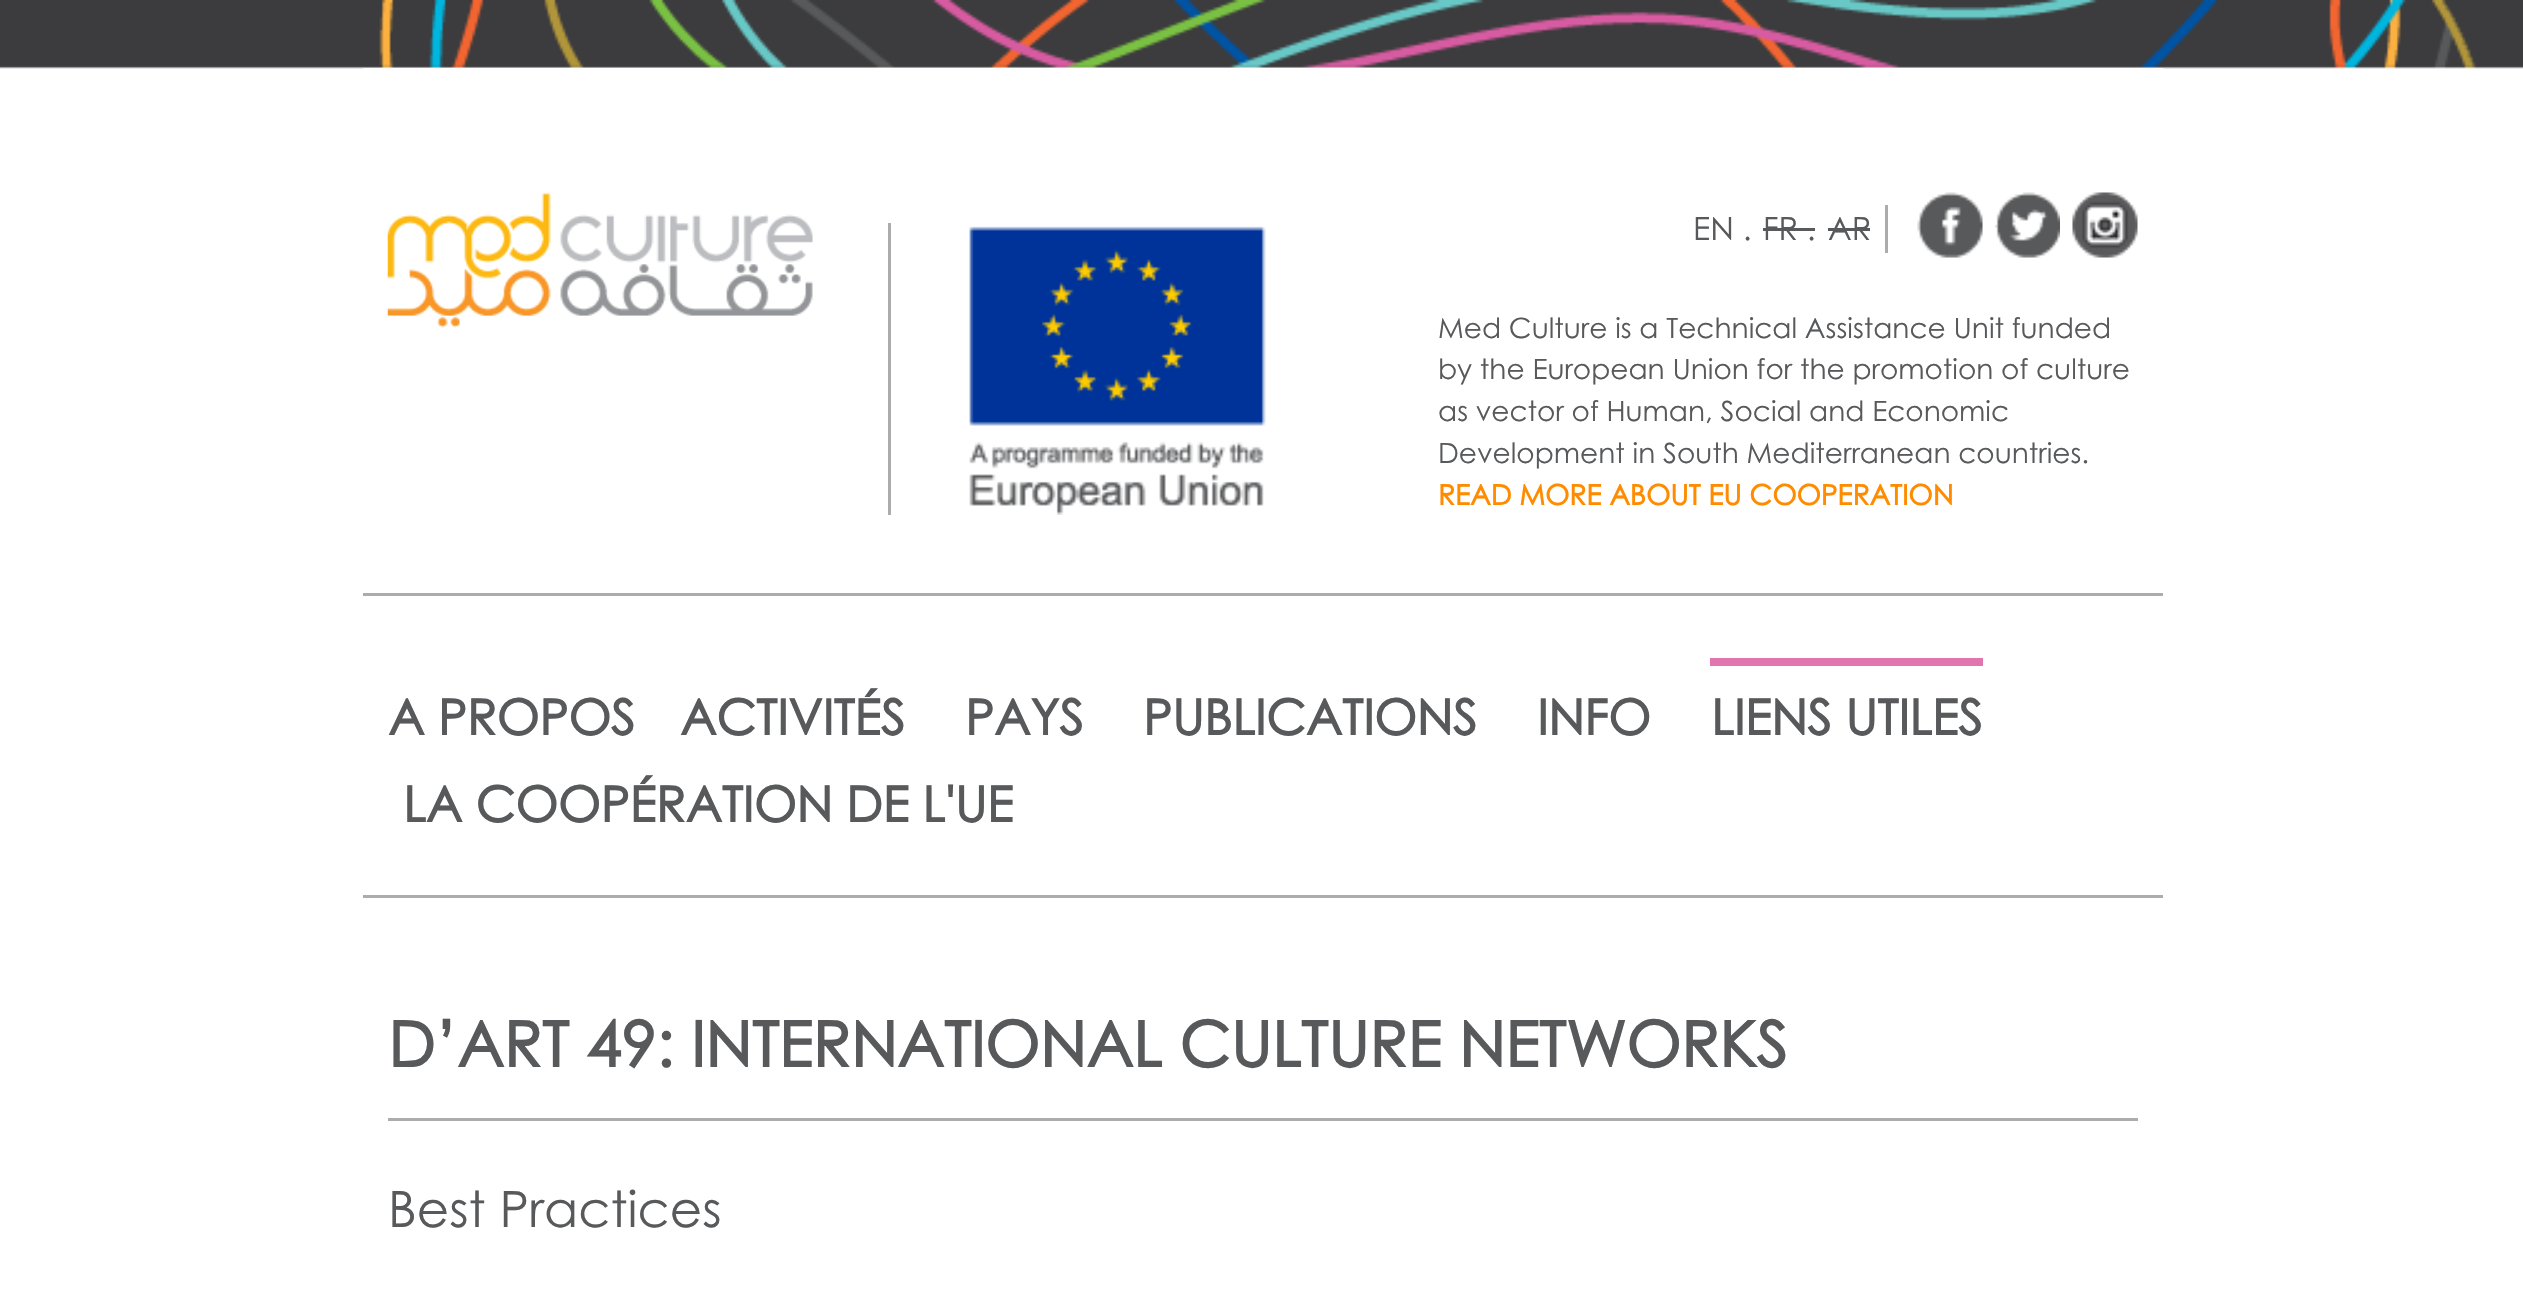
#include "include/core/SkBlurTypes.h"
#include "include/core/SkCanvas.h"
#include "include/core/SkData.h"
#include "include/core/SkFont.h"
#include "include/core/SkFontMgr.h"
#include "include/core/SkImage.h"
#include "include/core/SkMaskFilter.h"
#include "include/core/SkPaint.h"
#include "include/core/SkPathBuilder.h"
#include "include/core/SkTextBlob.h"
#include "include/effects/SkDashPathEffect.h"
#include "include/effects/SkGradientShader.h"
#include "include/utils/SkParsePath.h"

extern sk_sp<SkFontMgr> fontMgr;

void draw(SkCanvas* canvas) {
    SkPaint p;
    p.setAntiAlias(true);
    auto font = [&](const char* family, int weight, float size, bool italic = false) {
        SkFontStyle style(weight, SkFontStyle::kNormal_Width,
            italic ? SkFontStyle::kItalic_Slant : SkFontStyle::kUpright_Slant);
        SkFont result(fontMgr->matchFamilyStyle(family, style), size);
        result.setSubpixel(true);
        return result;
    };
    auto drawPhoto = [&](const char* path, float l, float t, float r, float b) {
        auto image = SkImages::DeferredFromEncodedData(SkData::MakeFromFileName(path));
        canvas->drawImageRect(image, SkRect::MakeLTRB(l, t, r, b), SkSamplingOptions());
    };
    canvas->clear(0xFFFFFFFF);
    drawPhoto("media/1.png", 0, 0, 2523, 69);
    p.setColor(0xFFFFFFFF);
    canvas->drawRect(SkRect::MakeLTRB(363, 68, 2163, 69), p);
    drawPhoto("media/2.png", 387, 192, 813, 328);
    p.setColor(0xFFACACAD);
    canvas->drawRect(SkRect::MakeLTRB(888, 223, 891, 515), p);
    drawPhoto("media/3.png", 969, 226, 1266, 515);
    canvas->drawRect(SkRect::MakeLTRB(1885, 205, 1888, 253), p);
    auto font1 = font("Century Gothic", 400, 32);
    p.setColor(0xFF58595B);
    canvas->drawString("EN .", 1693, 240, font1, p);
    canvas->drawString("FR .", 1763, 240, font1, p);
    canvas->drawRect(SkRect::MakeLTRB(1763, 228, 1815, 231), p);
    canvas->drawString("AR", 1828, 240, font1, p);
    canvas->drawRect(SkRect::MakeLTRB(1828, 228, 1870, 231), p);
    drawPhoto("media/4.png", 1917, 192, 1983, 258);
    drawPhoto("media/5.png", 1995, 192, 2060, 258);
    drawPhoto("media/6.png", 2072, 192, 2138, 258);
    auto font2 = font("Century Gothic", 400, 28);
    {
        const struct { const char* s; float x, y; } items[] = {
            {"Med Culture is a Technical Assistance Unit funded", 1438, 338},
            {"by the European Union for the promotion of culture", 1438, 379},
            {"as vector of Human, Social and Economic", 1438, 421},
            {"Development in South Mediterranean countries.", 1438, 463},
        };
        for (auto [s, x, y] : items) {
            canvas->drawString(s, x, y, font2, p);
        }
    }
    auto font3 = font("Century Gothic", 700, 28);
    p.setColor(0xFFFF8C00);
    canvas->drawString("READ MORE ABOUT EU COOPERATION", 1438, 505, font3, p);
    p.setColor(0xFFACACAD);
    canvas->drawRect(SkRect::MakeLTRB(363, 593, 2163, 596), p);
    canvas->drawRect(SkRect::MakeLTRB(363, 895, 2163, 898), p);
    auto font4 = font("Century Gothic", 700, 49);
    p.setColor(0xFF58595B);
    {
        const struct { const char* s; float x, y; } items[] = {
            {"A PROPOS", 388, 735},
            {"ACTIVITÉS", 680, 735},
            {"PAYS", 965, 735},
            {"PUBLICATIONS", 1143, 735},
            {"INFO", 1537, 735},
        };
        for (auto [s, x, y] : items) {
            canvas->drawString(s, x, y, font4, p);
        }
    }
    p.setColor(0xFFE175AF);
    canvas->drawRect(SkRect::MakeLTRB(1710, 658, 1983, 666), p);
    p.setColor(0xFF58595B);
    canvas->drawString("LIENS UTILES", 1711, 735, font4, p);
    canvas->drawString("LA COOPÉRATION DE L'UE", 403, 822, font4, p);
    p.setColor(0xFFACACAD);
    canvas->drawRect(SkRect::MakeLTRB(388, 1118, 2138, 1121), p);
    auto font5 = font("Century Gothic", 700, 63);
    p.setColor(0xFF58595B);
    canvas->drawString("D’ART 49: INTERNATIONAL CULTURE NETWORKS", 388, 1067, font5, p);
    auto font6 = font("Century Gothic", 400, 50);
    canvas->drawString("Best Practices", 388, 1227, font6, p);
}
